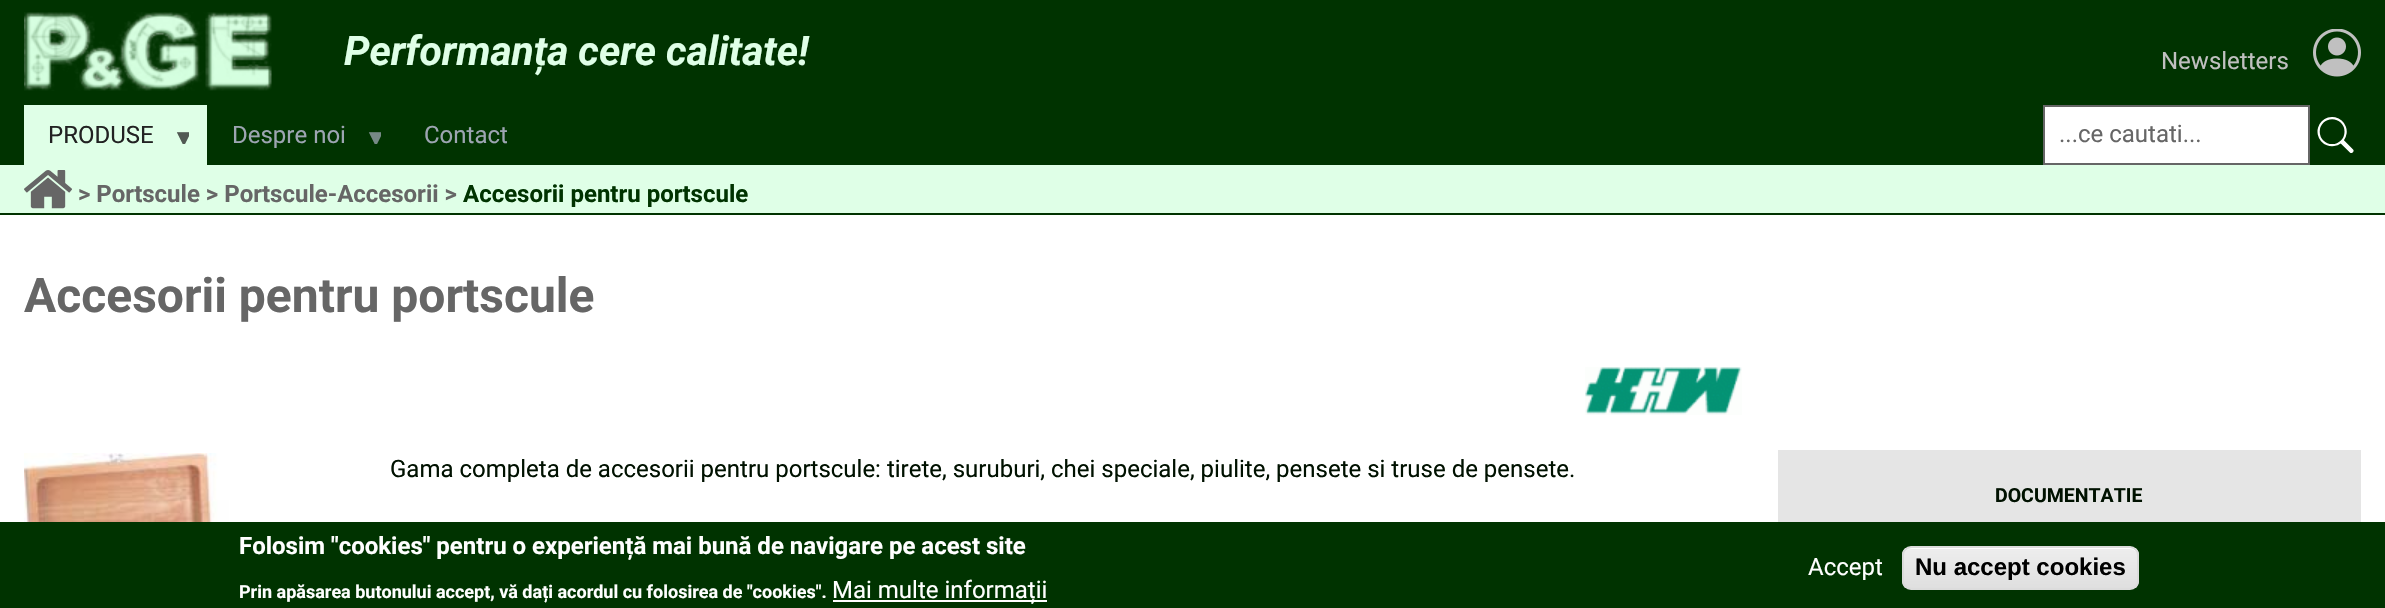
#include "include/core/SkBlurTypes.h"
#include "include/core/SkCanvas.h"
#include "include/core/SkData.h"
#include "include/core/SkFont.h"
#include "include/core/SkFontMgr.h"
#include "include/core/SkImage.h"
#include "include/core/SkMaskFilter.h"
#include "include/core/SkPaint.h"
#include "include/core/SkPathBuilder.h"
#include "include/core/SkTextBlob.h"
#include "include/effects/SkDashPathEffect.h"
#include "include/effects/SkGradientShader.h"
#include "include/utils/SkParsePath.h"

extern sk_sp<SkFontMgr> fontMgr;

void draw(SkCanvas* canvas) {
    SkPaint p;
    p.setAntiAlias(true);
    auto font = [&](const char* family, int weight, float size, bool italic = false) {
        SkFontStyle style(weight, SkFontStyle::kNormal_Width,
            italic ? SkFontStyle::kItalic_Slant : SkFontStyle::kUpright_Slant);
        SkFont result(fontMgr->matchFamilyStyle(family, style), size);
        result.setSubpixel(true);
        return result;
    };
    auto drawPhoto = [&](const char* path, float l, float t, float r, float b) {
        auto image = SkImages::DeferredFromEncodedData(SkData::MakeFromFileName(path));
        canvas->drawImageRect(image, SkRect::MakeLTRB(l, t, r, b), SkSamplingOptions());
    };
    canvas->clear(0xFFFFFFFF);
    p.setColor(0xFF003300);
    canvas->drawRect(SkRect::MakeLTRB(0, 0, 2385, 165), p);
    drawPhoto("media/1.png", 24, 12, 272, 91);
    auto font1 = font("Roboto", 700, 40.75f, true);
    p.setColor(0xFFDFFFE7);
    canvas->drawString("Performanța cere calitate!", 344, 65, font1, p);
    auto font2 = font("Roboto", 400, 24);
    p.setColor(0xFFC0C0C0);
    canvas->drawString("Newsletters", 2161, 69, font2, p);
    drawPhoto("media/2.png", 2313, 29, 2361, 77);
    p.setColor(0xFFDFFFE7);
    canvas->drawRect(SkRect::MakeLTRB(24, 105, 207, 165), p);
    p.setColor(0xFF222222);
    canvas->drawString("PRODUSE", 48, 143, font2, p);
    canvas->save();
    canvas->clipRect(SkRect::MakeLTRB(171, 126, 189, 144));
    auto font3 = font("Liberation Sans", 400, 24);
    p.setColor(0xFF515953);
    canvas->drawString("▼", 172, 146, font3, p);
    canvas->restore();
    p.setColor(0xFF9DA5B2);
    canvas->drawString("Despre noi", 232, 143, font2, p);
    canvas->save();
    canvas->clipRect(SkRect::MakeLTRB(363, 126, 381, 144));
    p.setColor(0xFF768986);
    canvas->drawString("▼", 364, 146, font3, p);
    canvas->restore();
    p.setColor(0xFF9DA5B2);
    canvas->drawString("Contact", 424, 143, font2, p);
    p.setColor(0xFFFFFFFF);
    canvas->drawRect(SkRect::MakeLTRB(2044, 106, 2309, 164), p);
    p.setStyle(SkPaint::kStroke_Style);
    p.setStrokeWidth(2);
    p.setColor(0xFF666666);
    canvas->drawRect(SkRect::MakeLTRB(2044, 106, 2309, 164), p);
    p.setStyle(SkPaint::kFill_Style);
    canvas->drawString("...ce cautati...", 2059, 142, font2, p);
    drawPhoto("media/3.png", 2317, 117, 2354, 153);
    p.setColor(0xFFDFFFE7);
    canvas->drawRect(SkRect::MakeLTRB(0, 165, 2385, 213), p);
    p.setColor(0xFF003300);
    canvas->drawRect(SkRect::MakeLTRB(0, 213, 2385, 215), p);
    drawPhoto("media/4.png", 24, 170, 72, 209);
    auto font4 = font("Roboto", 700, 24);
    p.setColor(0xFF666666);
    canvas->drawString("> Portscule > Portscule-Accesorii >", 78, 202, font4, p);
    p.setColor(0xFF003300);
    canvas->drawString("Accesorii pentru portscule", 463, 202, font4, p);
    auto font5 = font("Roboto", 700, 48);
    p.setColor(0xFF666666);
    canvas->drawString("Accesorii pentru portscule", 24, 312, font5, p);
    drawPhoto("media/5.png", 1585, 367, 1742, 415);
    drawPhoto("media/6.png", 24, 453, 249, 522);
    p.setColor(0xFF001100);
    canvas->drawString("Gama completa de accesorii pentru portscule: tirete, suruburi, chei speciale, piulite, pensete si truse de pensete.", 390, 477, font2, p);
    p.setColor(0xFFE5E5E5);
    canvas->drawRect(SkRect::MakeLTRB(1778, 450, 2361, 522), p);
    auto font6 = font("Roboto", 700, 19.5f);
    p.setColor(0xFF001100);
    canvas->drawString("DOCUMENTATIE", 1995, 502, font6, p);
    p.setColor(0xFF003300);
    canvas->drawRect(SkRect::MakeLTRB(0, 522, 2385, 608), p);
    p.setColor(0xFFFFFFFF);
    canvas->drawString("Folosim \"cookies\" pentru o experiență mai bună de navigare pe acest site", 239, 554, font4, p);
    auto font7 = font("Roboto", 700, 18);
    canvas->drawString("Prin apăsarea butonului accept, vă dați acordul cu folosirea de \"cookies\".", 239, 598, font7, p);
    canvas->drawRect(SkRect::MakeLTRB(833, 600, 1047, 602), p);
    canvas->drawString("Mai multe informații", 832, 598, font2, p);
    canvas->drawString("Accept", 1808, 575, font2, p);
    canvas->save();
    canvas->clipPath(SkPathBuilder().moveTo(1911, 546).lineTo(2130, 546).cubicTo(2135, 546, 2139, 550, 2139, 555).lineTo(2139, 581).cubicTo(2139, 586, 2135, 590, 2130, 590).lineTo(1911, 590).cubicTo(1906, 590, 1902, 586, 1902, 581).lineTo(1902, 555).cubicTo(1902, 550, 1906, 546, 1911, 546).close().detach(), true);
    {
        const SkColor colors[] = {0xFFEDEDED, 0xFFDFDFDF};
        const float stops[] = {0.05f, 1};
        const SkPoint ends[] = {{2021, 548}, {2021, 588}};
        p.setShader(SkGradientShader::MakeLinear(ends, colors, stops, 2, SkTileMode::kClamp));
        p.setAlpha(255);
    }
    canvas->drawRect(SkRect::MakeLTRB(1902, 548, 2139, 588), p);
    canvas->restore();
    p.setShader(nullptr);
    p.setColor(0xFFFFFFFF);
    canvas->drawPath(SkPathBuilder().moveTo(1911, 549).lineTo(2130, 549).cubicTo(2134, 549, 2138, 552, 2138, 556).cubicTo(2138, 552, 2134, 548, 2130, 548).lineTo(1912, 548).cubicTo(1908, 548, 1904, 552, 1904, 556).cubicTo(1904, 552, 1907, 549, 1911, 549).close().detach(), p);
    p.setStyle(SkPaint::kStroke_Style);
    p.setColor(0xFFDCDCDC);
    canvas->drawRoundRect(SkRect::MakeLTRB(1903, 547, 2138, 589), 8, 8, p);
    auto font8 = font("Liberation Sans", 700, 24);
    p.setStyle(SkPaint::kFill_Style);
    p.setColor(0xFF000000);
    canvas->drawString("Nu accept cookies", 1915, 575, font8, p);
}
